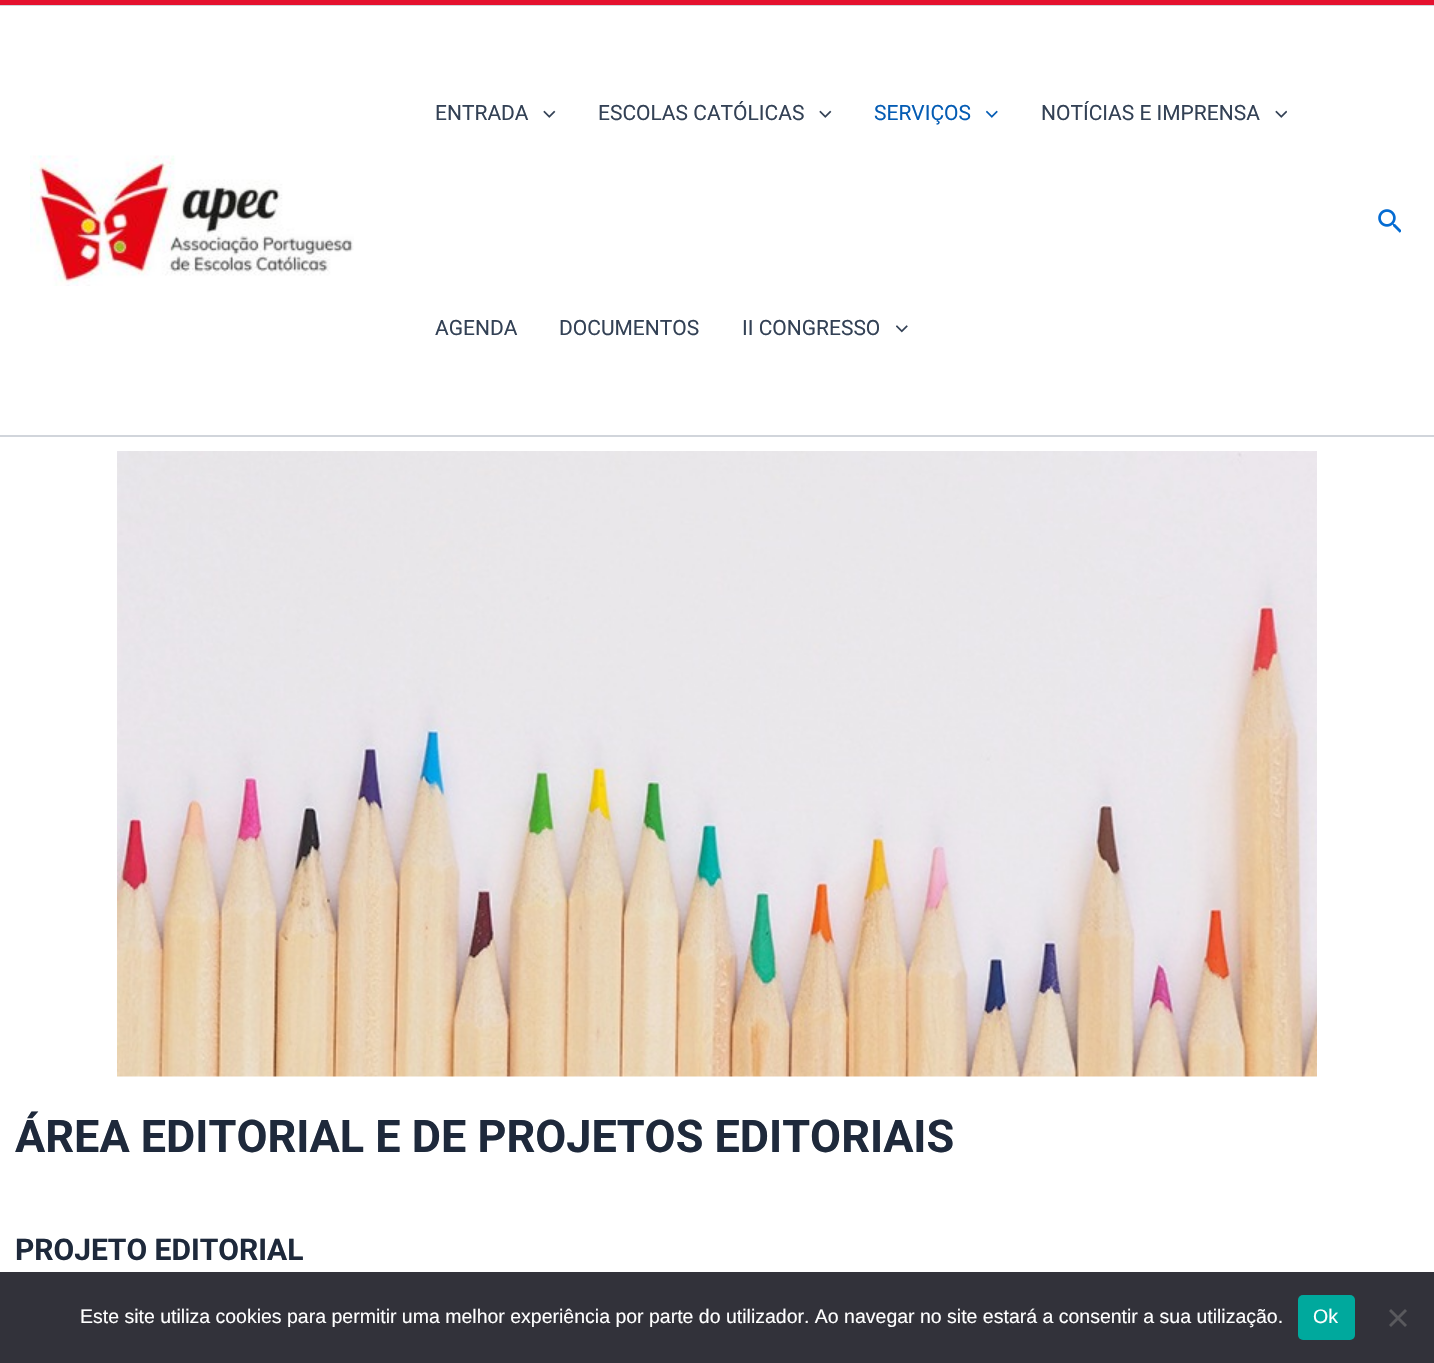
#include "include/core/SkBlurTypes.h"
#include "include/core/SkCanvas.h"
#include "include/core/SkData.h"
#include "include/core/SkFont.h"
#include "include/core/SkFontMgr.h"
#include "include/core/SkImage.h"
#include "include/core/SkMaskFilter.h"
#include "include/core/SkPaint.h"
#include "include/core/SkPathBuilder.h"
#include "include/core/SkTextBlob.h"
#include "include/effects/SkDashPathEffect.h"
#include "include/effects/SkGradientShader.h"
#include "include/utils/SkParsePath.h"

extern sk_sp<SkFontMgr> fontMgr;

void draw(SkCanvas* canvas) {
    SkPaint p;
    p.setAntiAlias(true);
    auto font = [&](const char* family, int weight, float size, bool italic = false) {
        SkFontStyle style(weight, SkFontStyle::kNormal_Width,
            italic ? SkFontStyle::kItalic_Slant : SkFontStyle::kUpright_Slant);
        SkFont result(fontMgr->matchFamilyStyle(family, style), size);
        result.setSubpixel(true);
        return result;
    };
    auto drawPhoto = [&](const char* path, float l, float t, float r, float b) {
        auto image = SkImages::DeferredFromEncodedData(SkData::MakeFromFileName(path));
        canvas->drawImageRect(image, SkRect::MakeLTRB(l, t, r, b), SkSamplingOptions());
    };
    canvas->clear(0xFFFFFFFF);
    {
        const struct { float l, t, r, b; SkColor color; } items[] = {
            {0, 0, 1434, 5, 0xFFE5112E},
            {0, 5, 1434, 6, 0xFFD1D5DB},
            {0, 435, 1434, 437, 0xFFD1D5DB},
        };
        for (auto [l, t, r, b, color] : items) {
            p.setColor(color);
            canvas->drawRect(SkRect::MakeLTRB(l, t, r, b), p);
        }
    }
    drawPhoto("media/1.png", 30, 155, 354, 286);
    auto font1 = font("Roboto", 400, 21);
    p.setColor(0xFF334155);
    canvas->drawString("ENTRADA", 435, 120, font1, p);
    drawPhoto("media/2.png", 543, 110, 556, 118);
    canvas->drawString("ESCOLAS CATÓLICAS", 598, 120, font1, p);
    drawPhoto("media/2.png", 819, 110, 832, 118);
    p.setColor(0xFF045CB4);
    canvas->drawString("SERVIÇOS", 874, 120, font1, p);
    drawPhoto("media/3.png", 986, 110, 998, 118);
    p.setColor(0xFF334155);
    canvas->drawString("NOTÍCIAS E IMPRENSA", 1041, 120, font1, p);
    drawPhoto("media/4.png", 1275, 110, 1287, 118);
    {
        const struct { const char* s; float x, y; } items[] = {
            {"AGENDA", 435, 335},
            {"DOCUMENTOS", 559, 335},
            {"II CONGRESSO", 742, 335},
        };
        for (auto [s, x, y] : items) {
            canvas->drawString(s, x, y, font1, p);
        }
    }
    drawPhoto("media/5.png", 896, 325, 908, 333);
    drawPhoto("media/6.png", 1378, 209, 1401, 233);
    drawPhoto("media/7.png", 117, 451, 1317, 1077);
    auto font2 = font("Roboto", 700, 45);
    p.setColor(0xFF1E293B);
    canvas->drawString("ÁREA EDITORIAL E DE PROJETOS EDITORIAIS", 15, 1152, font2, p);
    auto font3 = font("Roboto", 700, 30);
    canvas->drawString("PROJETO EDITORIAL", 15, 1260, font3, p);
    p.setColor(0xFF32323A);
    canvas->drawRect(SkRect::MakeLTRB(0, 1272, 1434, 1363), p);
    auto font4 = font("Liberation Sans", 400, 19.5f);
    p.setColor(0xFFFFFFFF);
    canvas->drawString("Este site utiliza cookies para permitir uma melhor experiência por parte do utilizador. Ao navegar no site estará a consentir a sua utilização.", 80, 1323, font4, p);
    p.setColor(0xFF00A99D);
    canvas->drawRoundRect(SkRect::MakeLTRB(1298, 1295, 1355, 1340), 5, 5, p);
    p.setColor(0xFFFFFFFF);
    canvas->drawString("Ok", 1313, 1323, font4, p);
    p.setColor(0xFF59595D);
    canvas->drawPath(SkPathBuilder().moveTo(1405, 1309).lineTo(1407, 1311).lineTo(1391, 1327).lineTo(1389, 1325).close().detach(), p);
    canvas->drawPath(SkPathBuilder().moveTo(1389, 1311).lineTo(1391, 1309).lineTo(1407, 1325).lineTo(1405, 1327).close().detach(), p);
}
